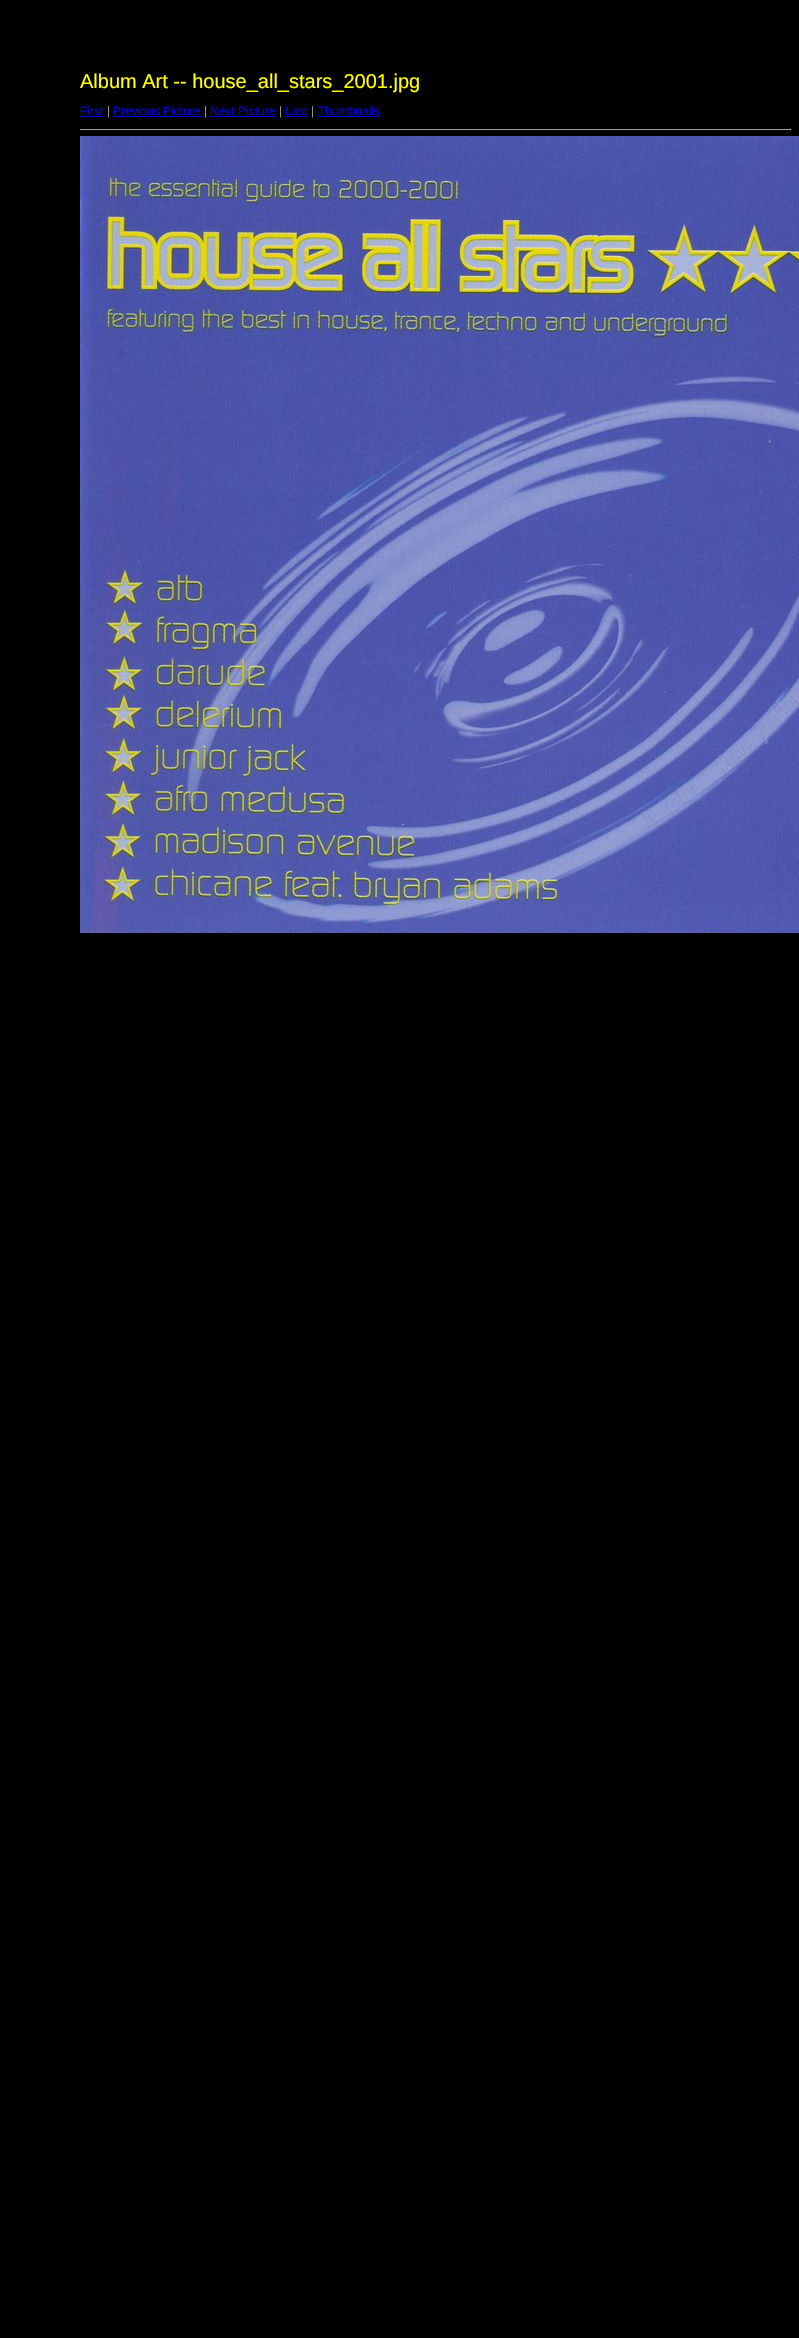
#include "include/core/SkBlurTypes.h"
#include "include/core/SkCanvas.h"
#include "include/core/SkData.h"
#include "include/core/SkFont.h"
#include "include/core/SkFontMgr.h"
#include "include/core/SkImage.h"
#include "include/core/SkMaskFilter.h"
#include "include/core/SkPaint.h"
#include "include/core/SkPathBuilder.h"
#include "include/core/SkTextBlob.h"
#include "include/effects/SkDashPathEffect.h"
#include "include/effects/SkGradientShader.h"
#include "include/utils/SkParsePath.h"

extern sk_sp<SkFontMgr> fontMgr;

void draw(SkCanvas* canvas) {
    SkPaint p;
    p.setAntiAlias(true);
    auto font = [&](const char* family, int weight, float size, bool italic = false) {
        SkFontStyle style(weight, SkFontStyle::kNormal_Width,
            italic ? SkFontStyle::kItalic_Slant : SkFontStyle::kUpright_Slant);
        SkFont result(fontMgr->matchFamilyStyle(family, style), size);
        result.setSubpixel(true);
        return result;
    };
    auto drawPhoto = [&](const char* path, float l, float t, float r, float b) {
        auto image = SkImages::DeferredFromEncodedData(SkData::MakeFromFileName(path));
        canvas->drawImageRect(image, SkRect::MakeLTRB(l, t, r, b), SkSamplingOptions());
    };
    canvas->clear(0xFF000000);
    auto font1 = font("Liberation Sans", 400, 20);
    p.setColor(0xFFFFFF00);
    canvas->drawString("Album Art -- house_all_stars_2001.jpg", 80, 88, font1, p);
    auto font2 = font("Liberation Sans", 400, 12);
    p.setColor(0xFF0000EE);
    canvas->drawString("First", 80, 115, font2, p);
    canvas->drawRect(SkRect::MakeLTRB(80, 116, 103, 117), p);
    p.setColor(0xFF999999);
    canvas->drawString("|", 107, 115, font2, p);
    p.setColor(0xFF0000EE);
    canvas->drawString("Previous Picture", 113, 115, font2, p);
    canvas->drawRect(SkRect::MakeLTRB(113, 116, 201, 117), p);
    p.setColor(0xFF999999);
    canvas->drawString("|", 204, 115, font2, p);
    p.setColor(0xFF0000EE);
    canvas->drawString("Next Picture", 210, 115, font2, p);
    canvas->drawRect(SkRect::MakeLTRB(210, 116, 276, 117), p);
    p.setColor(0xFF999999);
    canvas->drawString("|", 279, 115, font2, p);
    p.setColor(0xFF0000EE);
    canvas->drawString("Last", 285, 115, font2, p);
    canvas->drawRect(SkRect::MakeLTRB(285, 116, 308, 117), p);
    p.setColor(0xFF999999);
    canvas->drawString("|", 311, 115, font2, p);
    p.setColor(0xFF0000EE);
    canvas->drawString("Thumbnails", 318, 115, font2, p);
    {
        const struct { float l, t, r, b; SkColor color; } items[] = {
            {318, 116, 380, 117, 0xFF0000EE},
            {80, 129, 791, 130, 0xFF9F9F9F},
            {790, 129, 791, 130, 0xFFEEEEEE},
        };
        for (auto [l, t, r, b, color] : items) {
            p.setColor(color);
            canvas->drawRect(SkRect::MakeLTRB(l, t, r, b), p);
        }
    }
    drawPhoto("media/1.png", 80, 136, 799, 933);
}
